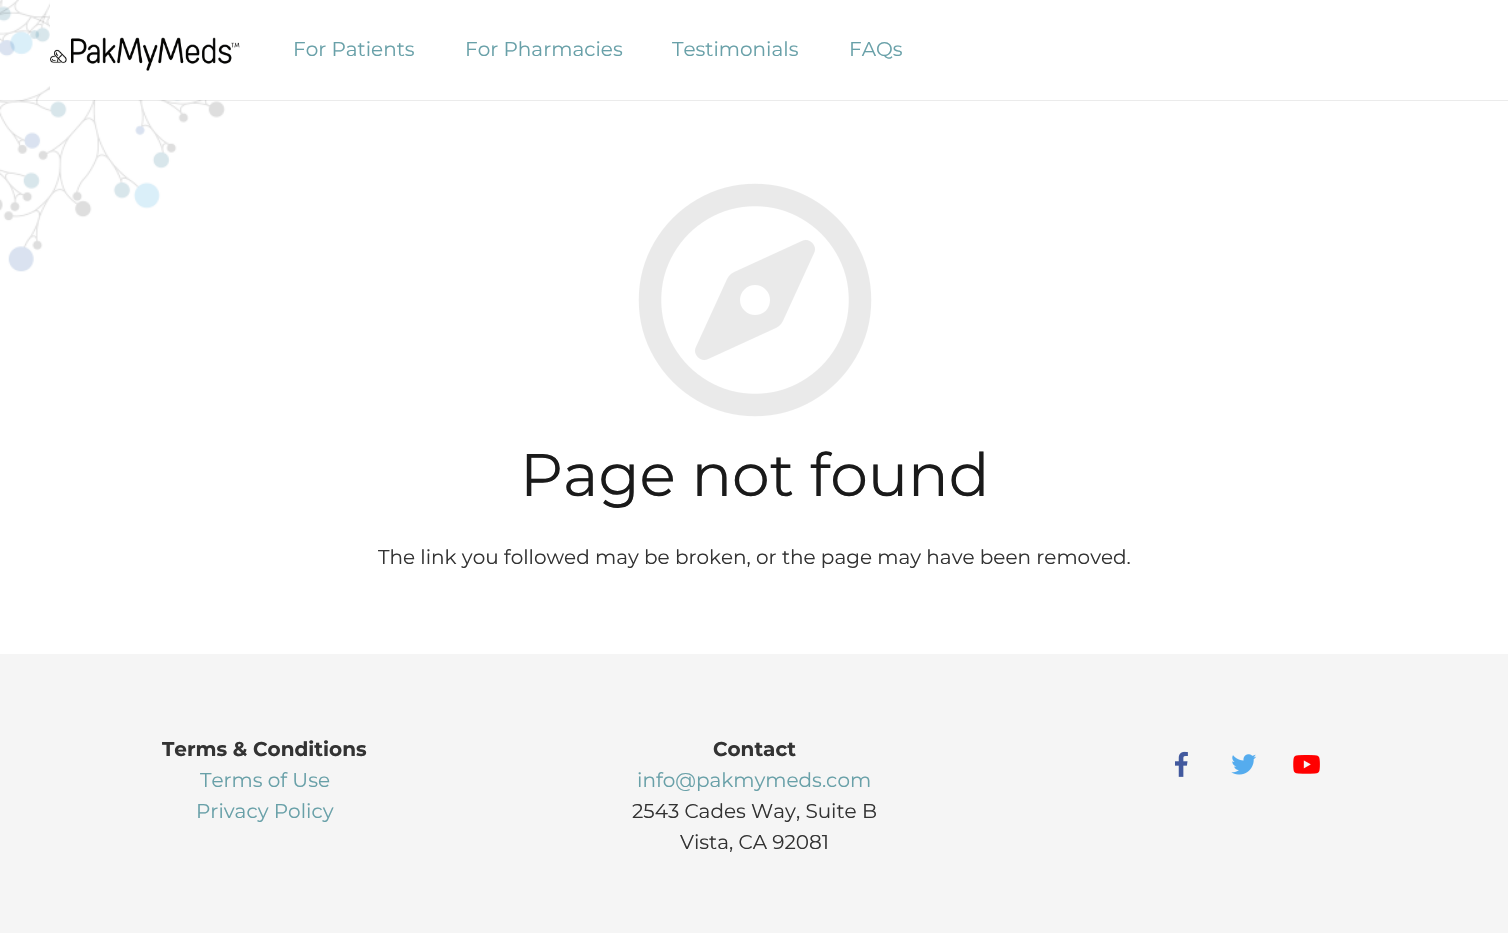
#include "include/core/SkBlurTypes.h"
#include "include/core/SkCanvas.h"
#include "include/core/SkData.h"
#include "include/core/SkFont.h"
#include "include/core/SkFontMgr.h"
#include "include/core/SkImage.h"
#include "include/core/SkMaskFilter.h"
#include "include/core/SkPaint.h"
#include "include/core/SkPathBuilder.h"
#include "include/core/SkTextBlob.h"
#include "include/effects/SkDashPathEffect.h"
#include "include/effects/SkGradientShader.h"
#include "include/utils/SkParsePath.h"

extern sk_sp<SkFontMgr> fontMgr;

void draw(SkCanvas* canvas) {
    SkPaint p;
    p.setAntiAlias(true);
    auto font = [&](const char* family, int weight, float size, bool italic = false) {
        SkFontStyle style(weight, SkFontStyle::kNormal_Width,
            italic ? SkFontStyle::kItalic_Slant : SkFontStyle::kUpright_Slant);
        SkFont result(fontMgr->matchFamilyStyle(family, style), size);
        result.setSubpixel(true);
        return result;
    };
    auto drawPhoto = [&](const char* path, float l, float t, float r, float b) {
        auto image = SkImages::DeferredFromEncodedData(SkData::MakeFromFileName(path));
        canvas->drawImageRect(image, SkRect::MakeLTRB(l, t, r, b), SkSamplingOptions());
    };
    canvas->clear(0xFFFFFFFF);
    drawPhoto("media/1.png", 0, 0, 401, 272);
    p.setColor(0x14000000);
    canvas->drawPath(SkPathBuilder().moveTo(0, 100).lineTo(0, 101).lineTo(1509, 101).lineTo(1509, 1).lineTo(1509, 100).close().detach(), p);
    p.setColor(0xFFFFFFFF);
    canvas->drawRect(SkRect::MakeLTRB(50, 0, 401, 100), p);
    drawPhoto("media/2.png", 50, 37, 240, 71);
    auto font1 = font("Montserrat", 400, 20);
    p.setColor(0xFF68A0A8);
    {
        const struct { const char* s; float x, y; } items[] = {
            {"For Patients", 293, 56},
            {"For Pharmacies", 465, 56},
            {"Testimonials", 672, 56},
            {"FAQs", 849, 56},
        };
        for (auto [s, x, y] : items) {
            canvas->drawString(s, x, y, font1, p);
        }
    }
    drawPhoto("media/3.png", 638, 183, 872, 417);
    auto font2 = font("Montserrat", 400, 60);
    p.setColor(0xFF1A1A1A);
    canvas->drawString("Page not found", 520, 496, font2, p);
    p.setColor(0xFF333333);
    canvas->drawString("The link you followed may be broken, or the page may have been removed.", 378, 564, font1, p);
    p.setColor(0xFFF5F5F5);
    canvas->drawRect(SkRect::MakeLTRB(0, 654, 1508, 933), p);
    auto font3 = font("Montserrat", 700, 20);
    p.setColor(0xFF333333);
    canvas->drawString("Terms & Conditions", 162, 756, font3, p);
    p.setColor(0xFF68A0A8);
    canvas->drawString("Terms of Use", 200, 787, font1, p);
    canvas->drawString("Privacy Policy", 196, 818, font1, p);
    p.setColor(0xFF333333);
    canvas->drawString("Contact", 713, 756, font3, p);
    p.setColor(0xFF68A0A8);
    canvas->drawString("info@pakmymeds.com", 637, 787, font1, p);
    p.setColor(0xFF333333);
    canvas->drawString("2543 Cades Way, Suite B", 632, 818, font1, p);
    canvas->drawString("Vista, CA 92081", 680, 849, font1, p);
    drawPhoto("media/4.png", 1175, 751, 1188, 777);
    drawPhoto("media/5.png", 1231, 754, 1257, 775);
    drawPhoto("media/6.png", 1293, 755, 1320, 774);
}
